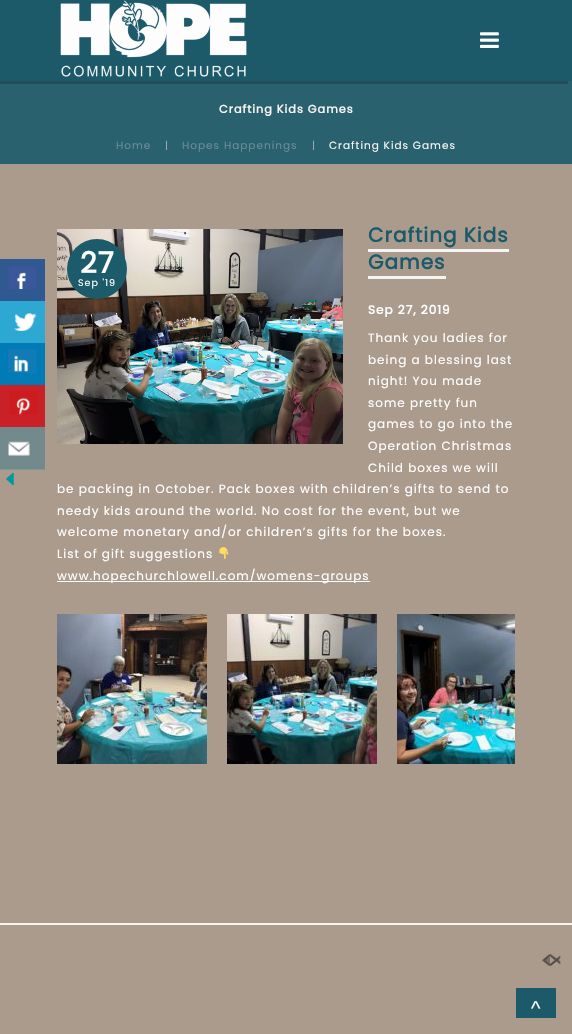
#include "include/core/SkBlurTypes.h"
#include "include/core/SkCanvas.h"
#include "include/core/SkData.h"
#include "include/core/SkFont.h"
#include "include/core/SkFontMgr.h"
#include "include/core/SkImage.h"
#include "include/core/SkMaskFilter.h"
#include "include/core/SkPaint.h"
#include "include/core/SkPathBuilder.h"
#include "include/core/SkTextBlob.h"
#include "include/effects/SkDashPathEffect.h"
#include "include/effects/SkGradientShader.h"
#include "include/utils/SkParsePath.h"

extern sk_sp<SkFontMgr> fontMgr;

void draw(SkCanvas* canvas) {
    SkPaint p;
    p.setAntiAlias(true);
    auto font = [&](const char* family, int weight, float size, bool italic = false) {
        SkFontStyle style(weight, SkFontStyle::kNormal_Width,
            italic ? SkFontStyle::kItalic_Slant : SkFontStyle::kUpright_Slant);
        SkFont result(fontMgr->matchFamilyStyle(family, style), size);
        result.setSubpixel(true);
        return result;
    };
    auto drawTracked = [&](const char* s, float x, float y, const SkFont& font, const SkPaint& ink, float letter, float word) {
        std::vector<SkGlyphID> glyphs(font.countText(s, strlen(s), SkTextEncoding::kUTF8));
        std::vector<float> xs(glyphs.size());
        font.textToGlyphs(s, strlen(s), SkTextEncoding::kUTF8, glyphs);
        font.getXPos(glyphs, xs, x);
        float extra = 0;
        for (size_t i = 0; i < glyphs.size(); i++) {
            xs[i] += extra;
            extra += letter + word * (glyphs[i] == font.unicharToGlyph(' '));
        }
        canvas->drawTextBlob(SkTextBlob::MakeFromPosHGlyphs(glyphs, xs, y, font), 0, 0, ink);
    };
    auto drawPhoto = [&](const char* path, float l, float t, float r, float b) {
        auto image = SkImages::DeferredFromEncodedData(SkData::MakeFromFileName(path));
        canvas->drawImageRect(image, SkRect::MakeLTRB(l, t, r, b), SkSamplingOptions());
    };
    canvas->clear(0xFFAA9B8D);
    p.setColor(0xFF2A616E);
    canvas->drawRect(SkRect::MakeLTRB(0, 81, 572, 164), p);
    p.setColor(0xFF224E58);
    canvas->drawPath(SkPathBuilder().moveTo(-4, 3).lineTo(-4, 84).lineTo(568, 84).lineTo(568, 81).lineTo(0, 81).lineTo(0, 3).close().detach(), p);
    p.setColor(0xFF1C5A6A);
    canvas->drawRect(SkRect::MakeLTRB(0, 0, 572, 81), p);
    drawPhoto("media/1.png", 60, 0, 247, 77);
    drawPhoto("media/2.png", 480, 32, 499, 48);
    auto font1 = font("Poppins", 700, 11.25f);
    p.setColor(0xFFF7F5F4);
    drawTracked("Crafting Kids Games", 219, 113, font1, p, 1, 0);
    auto font2 = font("Poppins", 400, 10.5f);
    p.setColor(0xFF688D96);
    drawTracked("Home", 116, 149, font2, p, 1, 0);
    p.setColor(0xFFA1AAB4);
    drawTracked("|", 165, 149, font2, p, 1, 0);
    p.setColor(0xFF688D96);
    drawTracked("Hopes Happenings", 182, 149, font2, p, 1, 0);
    p.setColor(0xFFA1AAB4);
    drawTracked("|", 312, 149, font2, p, 1, 0);
    p.setColor(0xFFF7F5F4);
    drawTracked("Crafting Kids Games", 329, 149, font2, p, 1, 0);
    p.setColor(0xFF305891);
    canvas->drawRect(SkRect::MakeLTRB(0, 259, 45, 301), p);
    drawPhoto("media/3.png", 8, 266, 36, 289);
    p.setColor(0xFF2CA8D2);
    canvas->drawRect(SkRect::MakeLTRB(0, 301, 45, 343), p);
    drawPhoto("media/4.png", 14, 313, 37, 331);
    p.setColor(0xFF007BB6);
    canvas->drawRect(SkRect::MakeLTRB(0, 343, 45, 385), p);
    drawPhoto("media/5.png", 8, 349, 37, 373);
    p.setColor(0xFFCA2027);
    canvas->drawRect(SkRect::MakeLTRB(0, 385, 45, 427), p);
    drawPhoto("media/6.png", 9, 391, 38, 415);
    p.setColor(0xFF738A8D);
    canvas->drawRect(SkRect::MakeLTRB(0, 427, 45, 469), p);
    p.setColor(0xFF819698);
    canvas->drawRect(SkRect::MakeLTRB(0, 469, 45, 470), p);
    drawPhoto("media/7.png", 8, 441, 30, 456);
    drawPhoto("media/8.png", 6, 472, 14, 486);
    drawPhoto("media/9.png", 57, 229, 343, 444);
    p.setColor(0xFF1C5B6A);
    canvas->drawCircle(97, 269, 30, p);
    auto font3 = font("Poppins", 700, 29);
    p.setColor(0xFFFFFFFF);
    drawTracked("27", 80, 273, font3, p, 1, 0);
    auto font4 = font("Poppins", 400, 9.5f);
    drawTracked("Sep '19", 78, 286, font4, p, 1, 0);
    auto font5 = font("Poppins", 700, 20);
    p.setColor(0xFF1C5A6A);
    drawTracked("Crafting Kids", 368, 242, font5, p, 1, 0);
    drawTracked("Games", 368, 269, font5, p, 1, 0);
    p.setColor(0xFFF4F4F4);
    canvas->drawRect(SkRect::MakeLTRB(368, 249, 509, 252), p);
    canvas->drawRect(SkRect::MakeLTRB(368, 276, 446, 279), p);
    auto font6 = font("Poppins", 700, 12);
    p.setColor(0xFFFFFFFF);
    drawTracked("Sep 27, 2019", 368, 314, font6, p, 1, 0);
    auto font7 = font("Poppins", 400, 12);
    {
        const struct { const char* s; float x, y; } items[] = {
            {"Thank you ladies for", 368, 342},
            {"being a blessing last", 368, 364},
            {"night! You made", 368, 385},
            {"some pretty fun", 368, 407},
            {"games to go into the", 368, 428},
            {"Operation Christmas", 368, 450},
            {"Child boxes we will", 368, 472},
            {"be packing in October. Pack boxes with children’s gifts to send to", 57, 493},
            {"needy kids around the world. No cost for the event, but we", 57, 515},
            {"welcome monetary and/or children’s gifts for the boxes.", 57, 536},
            {"List of gift suggestions", 57, 558},
        };
        for (auto [s, x, y] : items) {
            drawTracked(s, x, y, font7, p, 1, 0);
        }
    }
    drawPhoto("media/10.png", 219, 547, 229, 559);
    canvas->drawRect(SkRect::MakeLTRB(57, 581, 370, 582), p);
    drawTracked("www.hopechurchlowell.com/womens-groups", 57, 580, font7, p, 1, 0);
    drawPhoto("media/11.png", 57, 614, 207, 764);
    drawPhoto("media/12.png", 227, 614, 377, 764);
    drawPhoto("media/13.png", 397, 614, 515, 764);
    p.setColor(0xFFF4F4F4);
    canvas->drawRect(SkRect::MakeLTRB(0, 923, 572, 925), p);
    drawPhoto("media/14.png", 542, 954, 561, 966);
    p.setColor(0xFF1C5A6A);
    canvas->drawRect(SkRect::MakeLTRB(516, 988, 556, 1018), p);
    auto font8 = font("Liberation Sans", 400, 20);
    p.setColor(0xFFFFFFFF);
    drawTracked("^", 531, 1015, font8, p, 1, 0);
}
